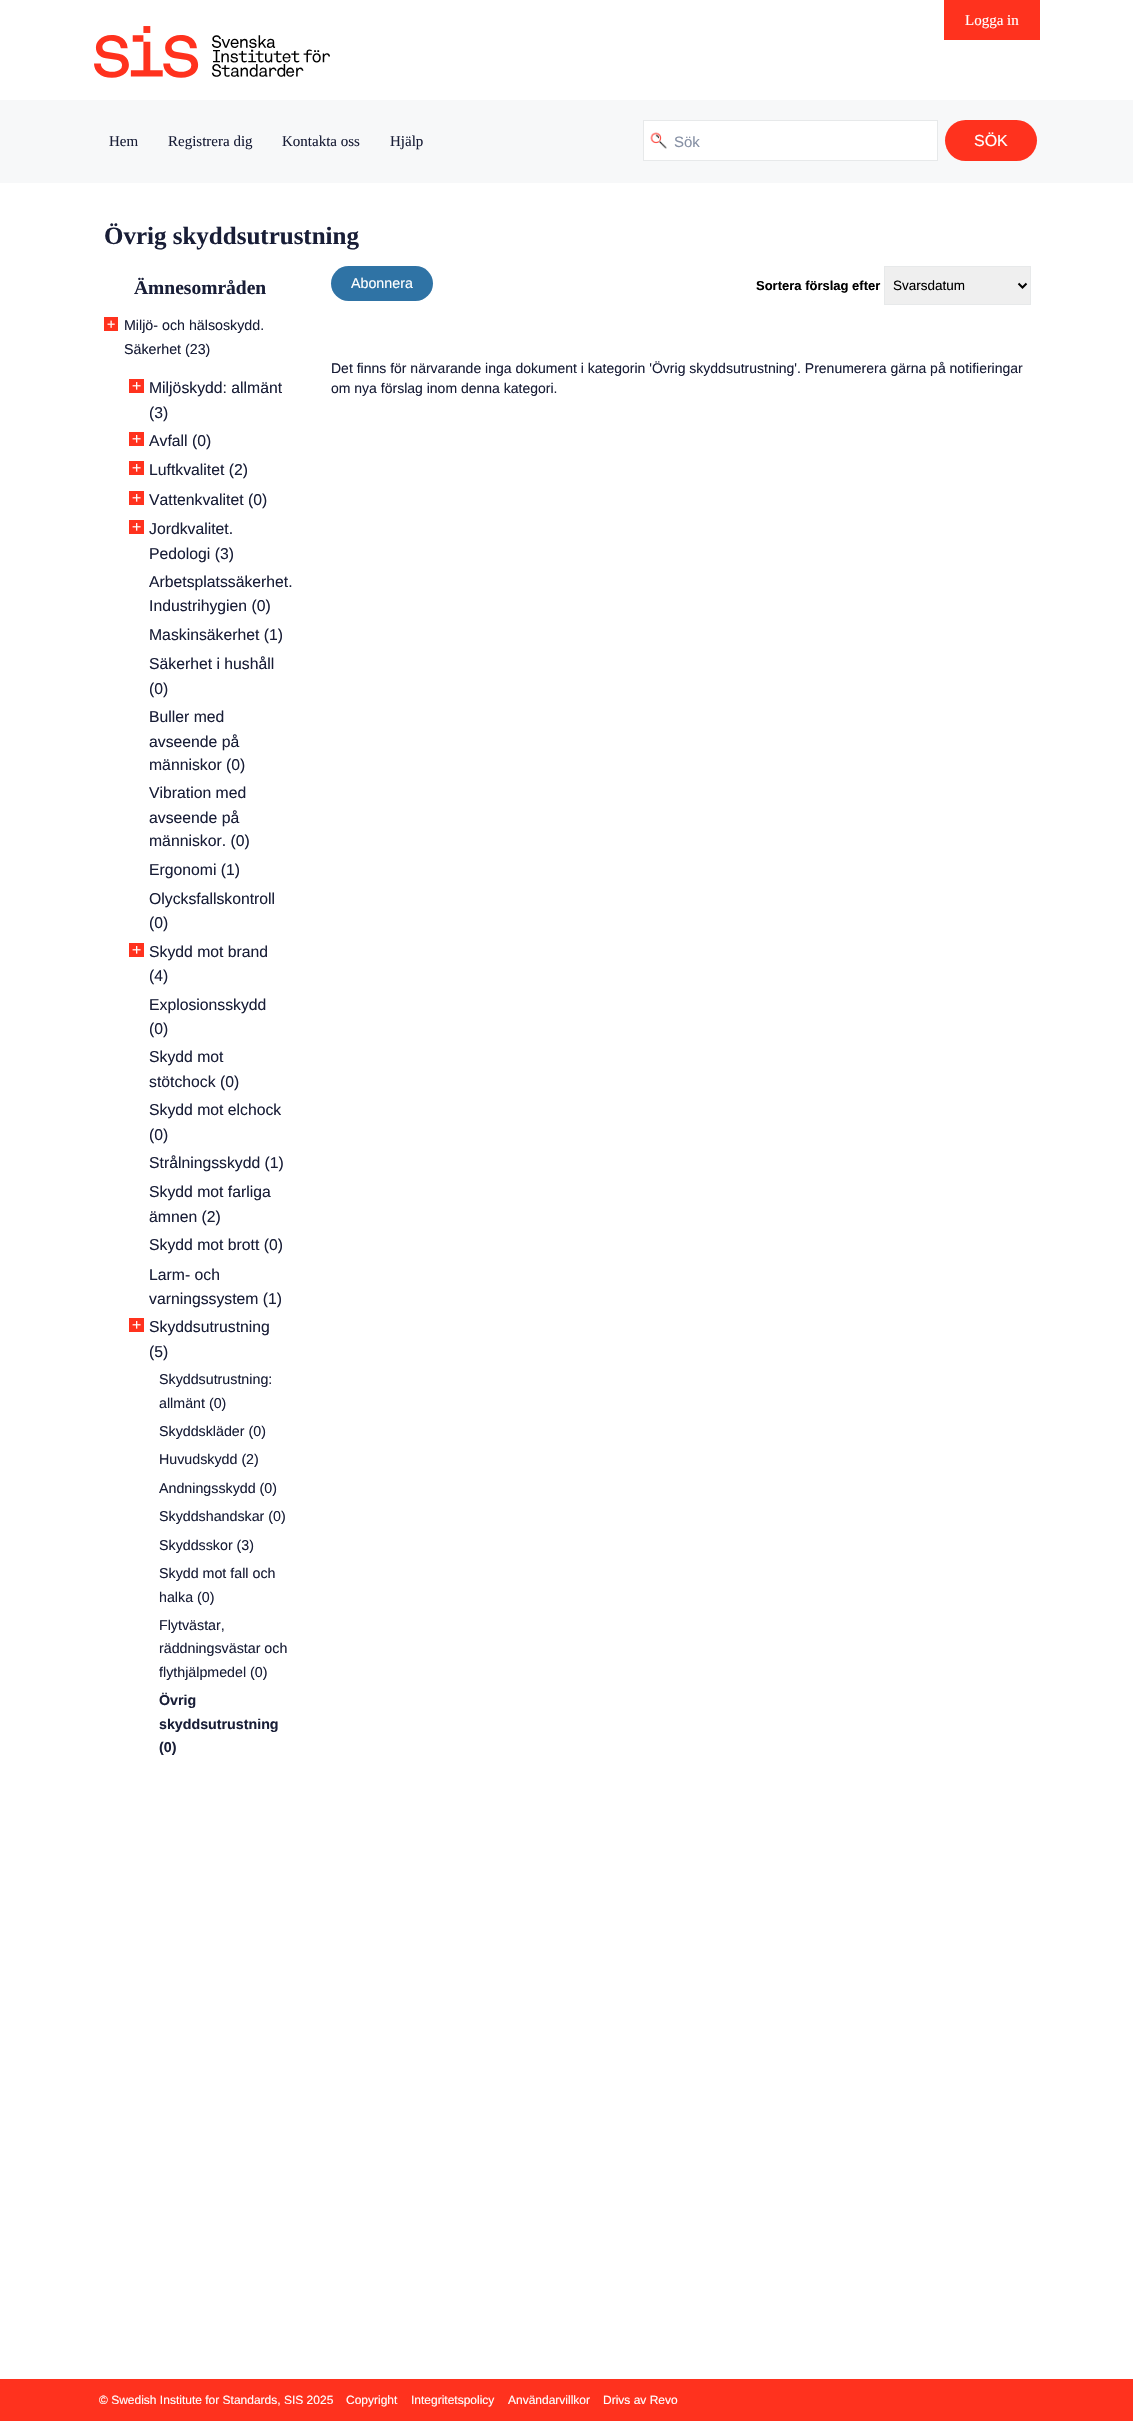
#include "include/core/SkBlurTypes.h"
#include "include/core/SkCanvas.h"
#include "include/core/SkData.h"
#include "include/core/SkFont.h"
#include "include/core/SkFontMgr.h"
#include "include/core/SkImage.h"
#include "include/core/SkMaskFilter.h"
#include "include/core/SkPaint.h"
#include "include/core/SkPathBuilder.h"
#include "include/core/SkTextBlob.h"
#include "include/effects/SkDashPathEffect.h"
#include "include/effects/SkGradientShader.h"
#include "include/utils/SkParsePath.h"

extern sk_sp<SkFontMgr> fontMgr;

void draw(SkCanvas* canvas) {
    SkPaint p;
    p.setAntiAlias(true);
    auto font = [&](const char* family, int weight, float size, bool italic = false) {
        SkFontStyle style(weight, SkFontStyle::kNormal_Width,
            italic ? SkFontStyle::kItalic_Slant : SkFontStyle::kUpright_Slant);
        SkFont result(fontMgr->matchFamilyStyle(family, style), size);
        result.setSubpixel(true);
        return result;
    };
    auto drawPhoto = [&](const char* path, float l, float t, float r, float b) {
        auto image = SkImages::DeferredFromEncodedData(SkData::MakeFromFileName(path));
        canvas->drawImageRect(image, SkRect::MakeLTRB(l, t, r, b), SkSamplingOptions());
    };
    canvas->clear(0xFFFFFFFF);
    p.setColor(0xFFF7F8F9);
    canvas->drawRect(SkRect::MakeLTRB(0, 100, 1133, 183), p);
    p.setColor(0xFFFF321E);
    canvas->drawRect(SkRect::MakeLTRB(944, 0, 1040, 40), p);
    auto font1 = font("Liberation Serif", 400, 15);
    p.setColor(0xFFFFFFFF);
    canvas->drawString("Logga in", 965, 25, font1, p);
    p.setColor(0xFF191E37);
    {
        const struct { const char* s; float x, y; } items[] = {
            {"Hem", 109, 146},
            {"Registrera dig", 168, 146},
            {"Kontakta oss", 282, 146},
            {"Hjälp", 390, 146},
        };
        for (auto [s, x, y] : items) {
            canvas->drawString(s, x, y, font1, p);
        }
    }
    drawPhoto("media/1.png", 94, 26, 330, 78);
    p.setColor(0xFFFFFFFF);
    canvas->drawRect(SkRect::MakeLTRB(643.5f, 120.5f, 937.5f, 160.5f), p);
    p.setStyle(SkPaint::kStroke_Style);
    p.setStrokeWidth(1);
    p.setColor(0xFFE7E9EA);
    canvas->drawRect(SkRect::MakeLTRB(643.5f, 120.5f, 937.5f, 160.5f), p);
    drawPhoto("media/2.png", 650, 132, 667, 149);
    auto font2 = font("Liberation Sans", 400, 15);
    p.setStyle(SkPaint::kFill_Style);
    p.setColor(0xFF8791A5);
    canvas->drawString("Sök", 674, 147, font2, p);
    p.setColor(0xFFFF321E);
    canvas->drawRoundRect(SkRect::MakeLTRB(945, 120, 1037, 161), 20.5f, 20.5f, p);
    auto font3 = font("Liberation Sans", 400, 16);
    p.setColor(0xFFFFFFFF);
    canvas->drawString("SÖK", 974, 146, font3, p);
    auto font4 = font("Liberation Serif", 700, 25);
    p.setColor(0xFF191E37);
    canvas->drawString("Övrig skyddsutrustning", 104, 244, font4, p);
    auto font5 = font("Liberation Serif", 700, 19.5f);
    canvas->drawString("Ämnesområden", 134, 294, font5, p);
    p.setColor(0xFFFF321E);
    canvas->drawRect(SkRect::MakeLTRB(104, 317, 118, 331), p);
    auto font6 = font("Liberation Sans", 400, 14.25f);
    p.setColor(0xFFFFFFFF);
    canvas->drawString("+", 107, 329, font6, p);
    p.setColor(0xFF191E37);
    canvas->drawString("Miljö- och hälsoskydd.", 124, 330, font6, p);
    canvas->drawString("Säkerhet (23)", 124, 354, font6, p);
    p.setColor(0xFFFF321E);
    canvas->drawRect(SkRect::MakeLTRB(129, 379, 144, 393), p);
    auto font7 = font("Liberation Sans", 400, 15.75f);
    p.setColor(0xFFFFFFFF);
    canvas->drawString("+", 132, 391, font7, p);
    p.setColor(0xFF191E37);
    canvas->drawString("Miljöskydd: allmänt", 149, 393, font7, p);
    canvas->drawString("(3)", 149, 418, font7, p);
    p.setColor(0xFFFF321E);
    canvas->drawRect(SkRect::MakeLTRB(129, 432, 144, 446), p);
    p.setColor(0xFFFFFFFF);
    canvas->drawString("+", 132, 444, font7, p);
    p.setColor(0xFF191E37);
    canvas->drawString("Avfall (0)", 149, 446, font7, p);
    p.setColor(0xFFFF321E);
    canvas->drawRect(SkRect::MakeLTRB(129, 461, 144, 475), p);
    p.setColor(0xFFFFFFFF);
    canvas->drawString("+", 132, 473, font7, p);
    p.setColor(0xFF191E37);
    canvas->drawString("Luftkvalitet (2)", 149, 475, font7, p);
    p.setColor(0xFFFF321E);
    canvas->drawRect(SkRect::MakeLTRB(129, 491, 144, 505), p);
    p.setColor(0xFFFFFFFF);
    canvas->drawString("+", 132, 503, font7, p);
    p.setColor(0xFF191E37);
    canvas->drawString("Vattenkvalitet (0)", 149, 505, font7, p);
    p.setColor(0xFFFF321E);
    canvas->drawRect(SkRect::MakeLTRB(129, 520, 144, 534), p);
    p.setColor(0xFFFFFFFF);
    canvas->drawString("+", 132, 532, font7, p);
    p.setColor(0xFF191E37);
    {
        const struct { const char* s; float x, y; } items[] = {
            {"Jordkvalitet.", 149, 534},
            {"Pedologi (3)", 149, 559},
            {"Arbetsplatssäkerhet.", 149, 587},
            {"Industrihygien (0)", 149, 611},
            {"Maskinsäkerhet (1)", 149, 640},
            {"Säkerhet i hushåll", 149, 669},
            {"(0)", 149, 694},
            {"Buller med", 149, 722},
            {"avseende på", 149, 747},
            {"människor (0)", 149, 770},
            {"Vibration med", 149, 798},
            {"avseende på", 149, 823},
            {"människor. (0)", 149, 846},
            {"Ergonomi (1)", 149, 875},
            {"Olycksfallskontroll", 149, 904},
            {"(0)", 149, 928},
        };
        for (auto [s, x, y] : items) {
            canvas->drawString(s, x, y, font7, p);
        }
    }
    p.setColor(0xFFFF321E);
    canvas->drawRect(SkRect::MakeLTRB(129, 943, 144, 957), p);
    p.setColor(0xFFFFFFFF);
    canvas->drawString("+", 132, 955, font7, p);
    p.setColor(0xFF191E37);
    {
        const struct { const char* s; float x, y; } items[] = {
            {"Skydd mot brand", 149, 957},
            {"(4)", 149, 981},
            {"Explosionsskydd", 149, 1010},
            {"(0)", 149, 1034},
            {"Skydd mot", 149, 1062},
            {"stötchock (0)", 149, 1087},
            {"Skydd mot elchock", 149, 1115},
            {"(0)", 149, 1140},
            {"Strålningsskydd (1)", 149, 1168},
            {"Skydd mot farliga", 149, 1197},
            {"ämnen (2)", 149, 1222},
            {"Skydd mot brott (0)", 149, 1250},
            {"Larm- och", 149, 1280},
            {"varningssystem (1)", 149, 1304},
        };
        for (auto [s, x, y] : items) {
            canvas->drawString(s, x, y, font7, p);
        }
    }
    p.setColor(0xFFFF321E);
    canvas->drawRect(SkRect::MakeLTRB(129, 1318, 144, 1332), p);
    p.setColor(0xFFFFFFFF);
    canvas->drawString("+", 132, 1330, font7, p);
    p.setColor(0xFF191E37);
    canvas->drawString("Skyddsutrustning", 149, 1332, font7, p);
    canvas->drawString("(5)", 149, 1357, font7, p);
    {
        const struct { const char* s; float x, y; } items[] = {
            {"Skyddsutrustning:", 159, 1384},
            {"allmänt (0)", 159, 1408},
            {"Skyddskläder (0)", 159, 1436},
            {"Huvudskydd (2)", 159, 1464},
            {"Andningsskydd (0)", 159, 1493},
            {"Skyddshandskar (0)", 159, 1521},
            {"Skyddsskor (3)", 159, 1550},
            {"Skydd mot fall och", 159, 1578},
            {"halka (0)", 159, 1602},
            {"Flytvästar,", 159, 1630},
            {"räddningsvästar och", 159, 1653},
            {"flythjälpmedel (0)", 159, 1677},
        };
        for (auto [s, x, y] : items) {
            canvas->drawString(s, x, y, font6, p);
        }
    }
    auto font8 = font("Liberation Sans", 700, 14.25f);
    {
        const struct { const char* s; float x, y; } items[] = {
            {"Övrig", 159, 1705},
            {"skyddsutrustning", 159, 1729},
            {"(0)", 159, 1752},
        };
        for (auto [s, x, y] : items) {
            canvas->drawString(s, x, y, font8, p);
        }
    }
    p.setColor(0xFF2F73A5);
    canvas->drawRoundRect(SkRect::MakeLTRB(331, 266, 433, 301), 17.5f, 17.5f, p);
    p.setColor(0xFFFFFFFF);
    canvas->drawString("Abonnera", 351, 288, font6, p);
    auto font9 = font("Liberation Sans", 700, 13);
    p.setColor(0xFF000000);
    canvas->drawString("Sortera förslag efter", 756, 290, font9, p);
    p.setColor(0xFFEFEFEF);
    canvas->drawRect(SkRect::MakeLTRB(884.5f, 266.5f, 1030.5f, 304.5f), p);
    p.setStyle(SkPaint::kStroke_Style);
    p.setColor(0xFFE7E9EA);
    canvas->drawRect(SkRect::MakeLTRB(884.5f, 266.5f, 1030.5f, 304.5f), p);
    p.setStrokeWidth(2);
    p.setColor(0xFF000000);
    canvas->drawPath(SkPathBuilder().moveTo(1018.5f, 283.5f).lineTo(1022.5f, 287.5f).lineTo(1026.5f, 283.5f).detach(), p);
    auto font10 = font("Liberation Sans", 400, 13.5f);
    p.setStyle(SkPaint::kFill_Style);
    canvas->drawString("Svarsdatum", 893, 290, font10, p);
    auto font11 = font("Liberation Sans", 400, 14);
    p.setColor(0xFF191E37);
    canvas->drawString("Det finns för närvarande inga dokument i kategorin 'Övrig skyddsutrustning'. Prenumerera gärna på notifieringar", 331, 373, font11, p);
    canvas->drawString("om nya förslag inom denna kategori.", 331, 393, font11, p);
    p.setColor(0xFFFF321E);
    canvas->drawRect(SkRect::MakeLTRB(0, 2379, 1133, 2421), p);
    auto font12 = font("Liberation Sans", 400, 12);
    p.setColor(0xFFFFFFFF);
    {
        const struct { const char* s; float x, y; } items[] = {
            {"© Swedish Institute for Standards, SIS 2025", 99, 2404},
            {"Copyright", 346, 2404},
            {"Integritetspolicy", 411, 2404},
            {"Användarvillkor", 508, 2404},
            {"Drivs av Revo", 603, 2404},
        };
        for (auto [s, x, y] : items) {
            canvas->drawString(s, x, y, font12, p);
        }
    }
}
